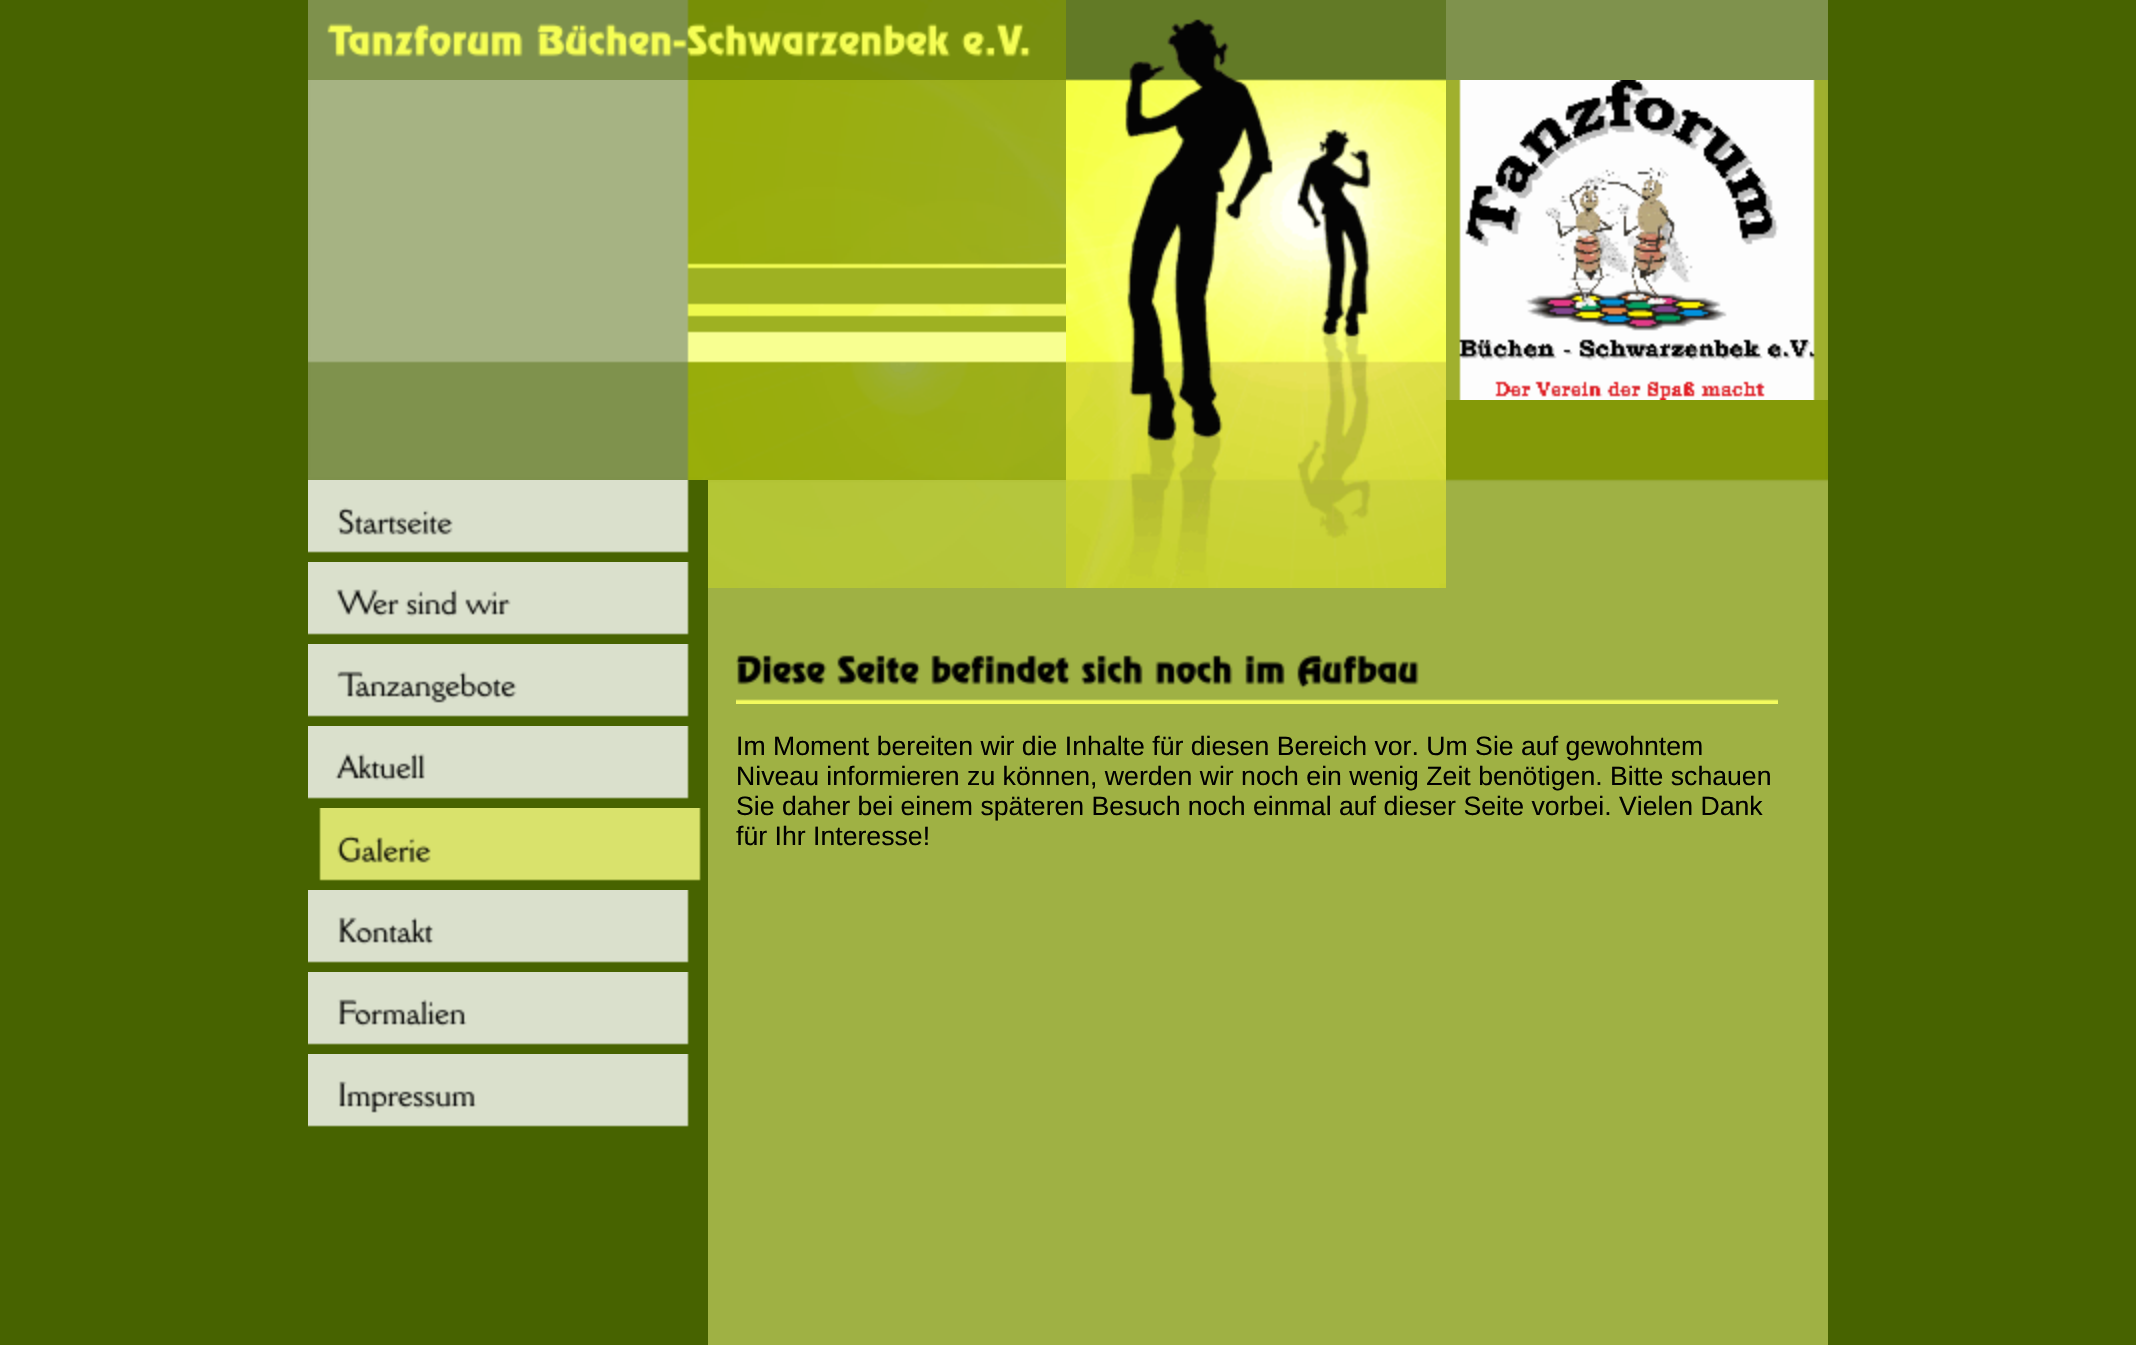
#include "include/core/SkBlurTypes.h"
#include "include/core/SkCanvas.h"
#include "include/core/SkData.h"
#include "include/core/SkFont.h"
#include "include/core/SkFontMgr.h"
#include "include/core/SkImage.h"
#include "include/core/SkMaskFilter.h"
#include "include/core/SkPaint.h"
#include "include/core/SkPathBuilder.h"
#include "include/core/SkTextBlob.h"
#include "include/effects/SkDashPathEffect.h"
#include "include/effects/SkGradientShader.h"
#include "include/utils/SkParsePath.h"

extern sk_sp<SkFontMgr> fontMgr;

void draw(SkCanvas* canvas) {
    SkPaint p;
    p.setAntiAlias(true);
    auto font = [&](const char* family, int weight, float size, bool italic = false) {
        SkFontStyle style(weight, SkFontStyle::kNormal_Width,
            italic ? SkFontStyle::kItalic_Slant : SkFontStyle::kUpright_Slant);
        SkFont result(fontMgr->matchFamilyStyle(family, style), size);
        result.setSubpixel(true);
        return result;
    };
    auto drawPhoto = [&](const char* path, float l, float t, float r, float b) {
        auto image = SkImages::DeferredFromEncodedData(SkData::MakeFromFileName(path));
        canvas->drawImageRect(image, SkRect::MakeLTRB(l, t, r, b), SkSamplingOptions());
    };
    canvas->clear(0xFF476300);
    drawPhoto("media/1.png", 308, 0, 1066, 80);
    drawPhoto("media/2.png", 1066, 0, 1446, 588);
    p.setColor(0xFF7F924D);
    canvas->drawRect(SkRect::MakeLTRB(1446, 0, 1828, 80), p);
    drawPhoto("media/3.png", 308, 80, 1066, 480);
    drawPhoto("media/4.png", 1446, 80, 1828, 400);
    drawPhoto("media/5.png", 308, 480, 689, 553);
    drawPhoto("media/6.png", 308, 562, 689, 635);
    drawPhoto("media/7.png", 308, 644, 689, 717);
    drawPhoto("media/8.png", 308, 726, 689, 799);
    drawPhoto("media/9.png", 319, 808, 701, 881);
    drawPhoto("media/10.png", 308, 890, 689, 963);
    drawPhoto("media/11.png", 308, 972, 689, 1045);
    drawPhoto("media/12.png", 308, 1054, 689, 1127);
    drawPhoto("media/13.png", 708, 480, 1066, 588);
    drawPhoto("media/14.png", 1446, 400, 1828, 588);
    p.setColor(0xFF9FB144);
    canvas->drawRect(SkRect::MakeLTRB(708, 588, 1828, 1345), p);
    drawPhoto("media/15.png", 736, 655, 1778, 704);
    auto font1 = font("Liberation Sans", 400, 26.65f);
    p.setColor(0xFF000000);
    {
        const struct { const char* s; float x, y; } items[] = {
            {"Im Moment bereiten wir die Inhalte für diesen Bereich vor. Um Sie auf gewohntem", 736, 755},
            {"Niveau informieren zu können, werden wir noch ein wenig Zeit benötigen. Bitte schauen", 736, 785},
            {"Sie daher bei einem späteren Besuch noch einmal auf dieser Seite vorbei. Vielen Dank", 736, 815},
            {"für Ihr Interesse!", 736, 845},
        };
        for (auto [s, x, y] : items) {
            canvas->drawString(s, x, y, font1, p);
        }
    }
}
